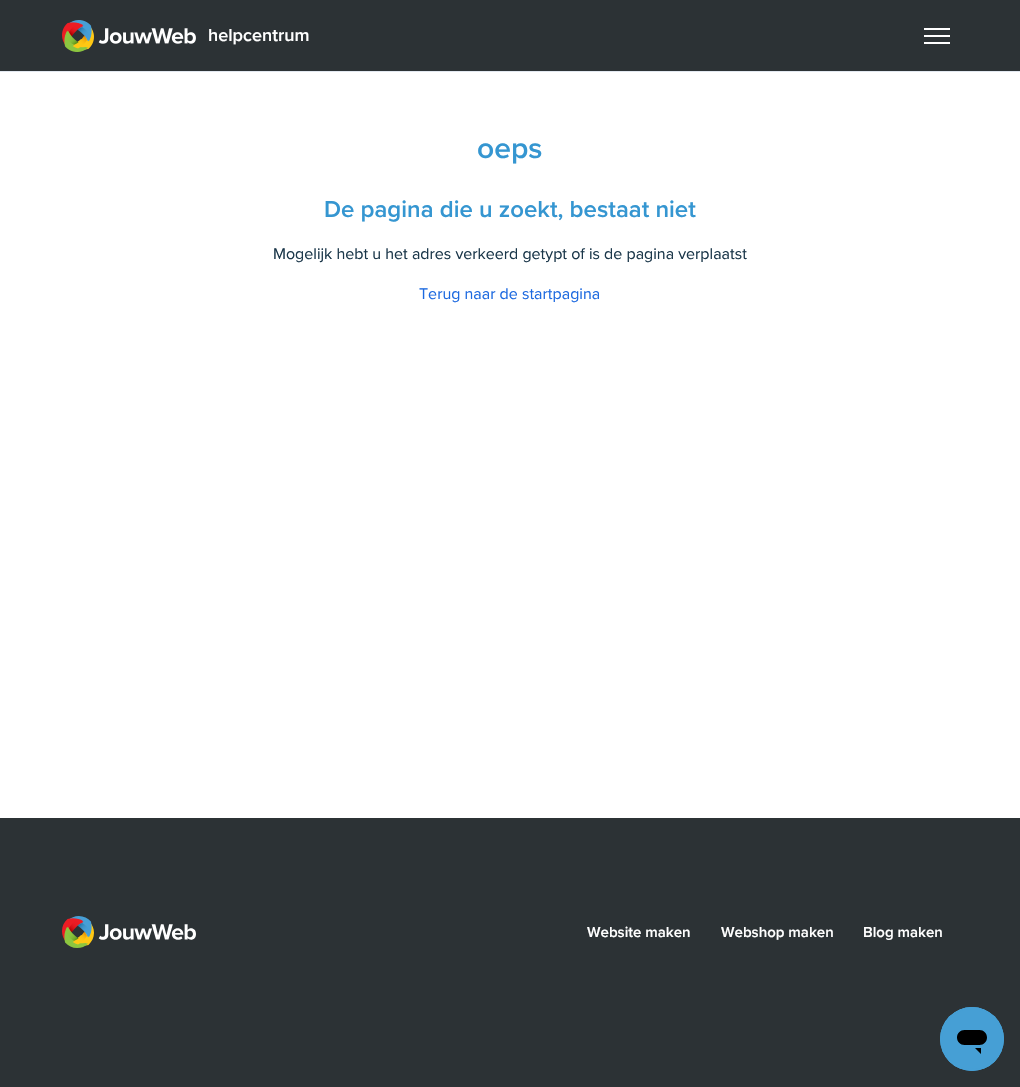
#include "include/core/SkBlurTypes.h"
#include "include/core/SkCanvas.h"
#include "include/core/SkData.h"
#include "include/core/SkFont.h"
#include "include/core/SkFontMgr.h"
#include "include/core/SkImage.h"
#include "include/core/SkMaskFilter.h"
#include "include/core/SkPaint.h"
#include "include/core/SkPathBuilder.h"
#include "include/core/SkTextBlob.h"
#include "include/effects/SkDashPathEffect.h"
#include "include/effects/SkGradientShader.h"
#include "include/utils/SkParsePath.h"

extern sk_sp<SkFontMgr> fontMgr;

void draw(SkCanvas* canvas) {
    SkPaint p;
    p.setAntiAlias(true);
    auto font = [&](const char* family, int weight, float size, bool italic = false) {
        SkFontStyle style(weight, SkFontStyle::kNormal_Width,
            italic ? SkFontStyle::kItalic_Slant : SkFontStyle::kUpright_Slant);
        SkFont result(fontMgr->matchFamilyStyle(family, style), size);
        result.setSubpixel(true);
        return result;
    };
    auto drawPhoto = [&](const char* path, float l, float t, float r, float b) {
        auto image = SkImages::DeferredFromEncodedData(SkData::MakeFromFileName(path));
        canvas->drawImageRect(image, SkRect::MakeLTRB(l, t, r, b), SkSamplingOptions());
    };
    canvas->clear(0xFFFFFFFF);
    p.setColor(0xFF2C3235);
    canvas->drawRect(SkRect::MakeLTRB(0, 0, 1020, 71), p);
    p.setColor(0xFFE2E8F0);
    canvas->drawRect(SkRect::MakeLTRB(0, 71, 1020, 72), p);
    drawPhoto("media/1.png", 62, 20, 196, 52);
    auto font1 = font("Proxima Nova", 600, 18);
    p.setColor(0xFFFFFFFF);
    canvas->drawString("helpcentrum", 208, 41, font1, p);
    {
        const struct { float l, t, r, b; SkColor color; } items[] = {
            {924, 35, 950, 37, 0xFFFFFFFF},
            {924, 28, 950, 30, 0xFFFFFFFF},
            {924, 42, 950, 44, 0xFFFFFFFF},
        };
        for (auto [l, t, r, b, color] : items) {
            p.setColor(color);
            canvas->drawRect(SkRect::MakeLTRB(l, t, r, b), p);
        }
    }
    auto font2 = font("Proxima Nova", 600, 30);
    p.setColor(0xFF3596D1);
    canvas->drawString("oeps", 477, 158, font2, p);
    auto font3 = font("Proxima Nova", 600, 24);
    canvas->drawString("De pagina die u zoekt, bestaat niet", 324, 217, font3, p);
    auto font4 = font("Proxima Nova", 400, 16);
    p.setColor(0xFF1B374A);
    canvas->drawString("Mogelijk hebt u het adres verkeerd getypt of is de pagina verplaatst", 273, 259, font4, p);
    p.setColor(0xFF1C69E0);
    canvas->drawString("Terug naar de startpagina", 419, 299, font4, p);
    p.setColor(0xFF2C3235);
    canvas->drawRect(SkRect::MakeLTRB(0, 818, 1020, 1087), p);
    drawPhoto("media/2.png", 62, 916, 196, 948);
    auto font5 = font("Proxima Nova", 600, 15);
    p.setColor(0xFFFFFFFF);
    {
        const struct { const char* s; float x, y; } items[] = {
            {"Website maken", 587, 937},
            {"Webshop maken", 721, 937},
            {"Blog maken", 863, 937},
        };
        for (auto [s, x, y] : items) {
            canvas->drawString(s, x, y, font5, p);
        }
    }
    drawPhoto("media/3.png", 940, 1007, 1004, 1071);
}
